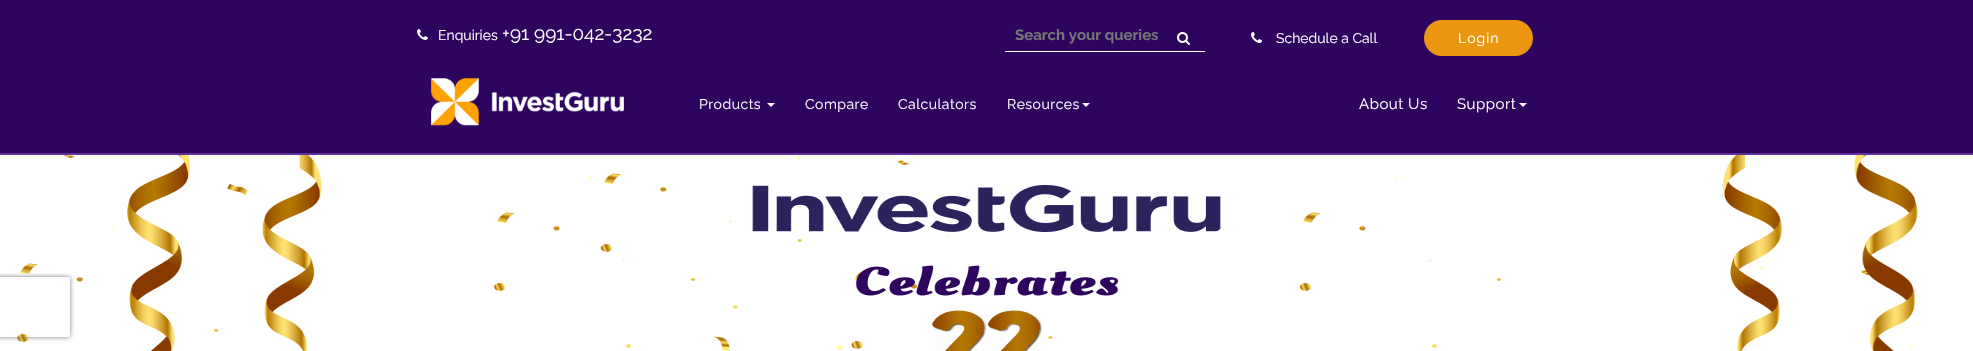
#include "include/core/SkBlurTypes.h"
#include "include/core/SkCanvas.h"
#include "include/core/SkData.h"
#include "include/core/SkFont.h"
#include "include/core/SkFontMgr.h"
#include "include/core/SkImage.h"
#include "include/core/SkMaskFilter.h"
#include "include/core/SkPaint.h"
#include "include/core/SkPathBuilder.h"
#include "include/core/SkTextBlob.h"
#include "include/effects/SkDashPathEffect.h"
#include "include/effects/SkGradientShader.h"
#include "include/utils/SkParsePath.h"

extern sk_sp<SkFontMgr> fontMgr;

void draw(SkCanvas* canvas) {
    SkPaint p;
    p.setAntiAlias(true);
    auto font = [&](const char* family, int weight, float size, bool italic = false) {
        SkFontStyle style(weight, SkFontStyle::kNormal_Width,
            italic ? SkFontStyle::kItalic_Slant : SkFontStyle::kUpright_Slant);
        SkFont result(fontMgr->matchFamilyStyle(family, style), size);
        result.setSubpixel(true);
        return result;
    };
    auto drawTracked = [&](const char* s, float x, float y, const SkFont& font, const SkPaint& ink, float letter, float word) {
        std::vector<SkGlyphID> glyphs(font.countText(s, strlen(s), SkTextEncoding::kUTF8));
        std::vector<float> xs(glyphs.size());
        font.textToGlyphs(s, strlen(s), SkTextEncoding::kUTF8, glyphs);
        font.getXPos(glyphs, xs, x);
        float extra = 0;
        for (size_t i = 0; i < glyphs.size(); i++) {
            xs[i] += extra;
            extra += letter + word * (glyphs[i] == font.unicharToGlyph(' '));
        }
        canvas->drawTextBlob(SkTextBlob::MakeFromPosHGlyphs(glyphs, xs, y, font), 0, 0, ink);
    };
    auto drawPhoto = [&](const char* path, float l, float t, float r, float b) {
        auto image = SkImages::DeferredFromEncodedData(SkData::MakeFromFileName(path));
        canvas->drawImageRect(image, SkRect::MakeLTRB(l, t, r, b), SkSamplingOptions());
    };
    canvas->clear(0xFF2D045E);
    p.setColor(0xFF612F9C);
    canvas->drawRect(SkRect::MakeLTRB(0, 153, 1973, 155), p);
    drawPhoto("media/1.png", 417, 29, 428, 40);
    auto font1 = font("Raleway", 400, 14);
    p.setColor(0xFFFFFFFF);
    canvas->drawString("Enquiries", 438, 40, font1, p);
    auto font2 = font("Raleway", 400, 19);
    canvas->drawString("+91 991-042-3232", 502, 40, font2, p);
    canvas->drawRect(SkRect::MakeLTRB(1005, 51, 1205, 52), p);
    auto font3 = font("Raleway", 700, 15);
    p.setColor(0xFF757575);
    canvas->drawString("Search your queries", 1015, 40, font3, p);
    drawPhoto("media/2.png", 1177, 32, 1190, 45);
    drawPhoto("media/1.png", 1251, 32, 1262, 43);
    p.setColor(0xFFFFFFFF);
    canvas->drawString("Schedule a Call", 1276, 43, font1, p);
    p.setColor(0xFFEA9611);
    canvas->drawRoundRect(SkRect::MakeLTRB(1425, 21, 1532, 55), 17, 17, p);
    p.setStyle(SkPaint::kStroke_Style);
    p.setStrokeWidth(2);
    canvas->drawRoundRect(SkRect::MakeLTRB(1425, 21, 1532, 55), 17, 17, p);
    p.setStyle(SkPaint::kFill_Style);
    p.setColor(0xFFFFFFFF);
    drawTracked("Login", 1458, 43, font1, p, 1, 0);
    drawPhoto("media/3.png", 431, 78, 624, 126);
    drawTracked("Products", 699, 109, font1, p, 0.5f, 0);
    canvas->drawPath(SkPathBuilder().moveTo(767, 103).lineTo(775, 103).lineTo(771, 107).close().detach(), p);
    {
        const struct { const char* s; float x, y; } items[] = {
            {"Compare", 805, 109},
            {"Calculators", 898, 109},
            {"Resources", 1007, 109},
        };
        for (auto [s, x, y] : items) {
            drawTracked(s, x, y, font1, p, 0.5f, 0);
        }
    }
    canvas->drawPath(SkPathBuilder().moveTo(1082, 103).lineTo(1090, 103).lineTo(1086, 107).close().detach(), p);
    auto font4 = font("Raleway", 400, 15);
    drawTracked("About Us", 1359, 109, font4, p, 0.5f, 0);
    drawTracked("Support", 1457, 109, font4, p, 0.5f, 0);
    canvas->drawPath(SkPathBuilder().moveTo(1519, 103).lineTo(1527, 103).lineTo(1523, 107).close().detach(), p);
    drawPhoto("media/4.png", 0, 155, 1973, 351);
    canvas->save();
    canvas->clipPath(SkPathBuilder(SkPathFillType::kEvenOdd).moveTo(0, 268).lineTo(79, 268).lineTo(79, 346).lineTo(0, 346).close().moveTo(-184, 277).lineTo(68, 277).cubicTo(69, 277, 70, 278, 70, 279).lineTo(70, 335).cubicTo(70, 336, 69, 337, 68, 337).lineTo(-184, 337).cubicTo(-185, 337, -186, 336, -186, 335).lineTo(-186, 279).cubicTo(-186, 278, -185, 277, -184, 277).close().detach(), true);
    p.setColor(0xFF808080);
    p.setMaskFilter(SkMaskFilter::MakeBlur(kNormal_SkBlurStyle, 2.5f));
    canvas->drawRoundRect(SkRect::MakeLTRB(-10, 277, 70, 337), 2, 2, p);
    p.setMaskFilter(nullptr);
    canvas->restore();
}
